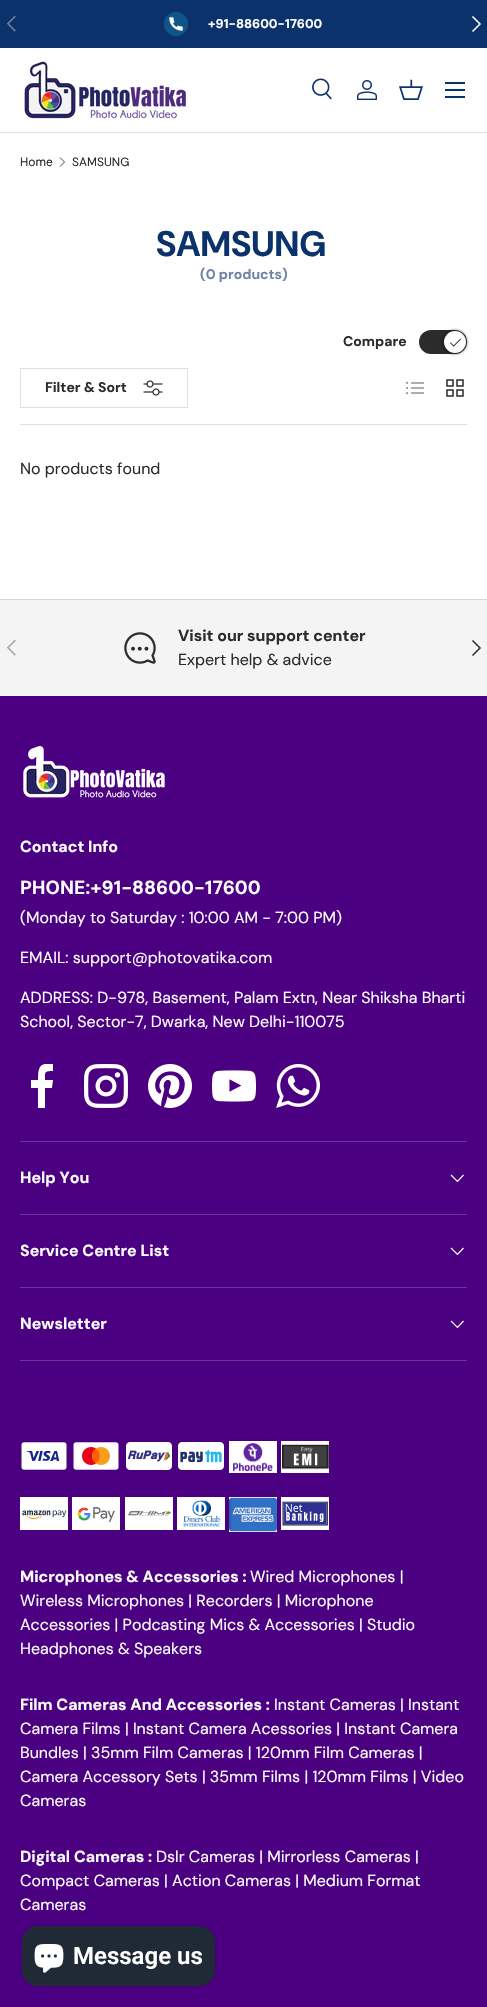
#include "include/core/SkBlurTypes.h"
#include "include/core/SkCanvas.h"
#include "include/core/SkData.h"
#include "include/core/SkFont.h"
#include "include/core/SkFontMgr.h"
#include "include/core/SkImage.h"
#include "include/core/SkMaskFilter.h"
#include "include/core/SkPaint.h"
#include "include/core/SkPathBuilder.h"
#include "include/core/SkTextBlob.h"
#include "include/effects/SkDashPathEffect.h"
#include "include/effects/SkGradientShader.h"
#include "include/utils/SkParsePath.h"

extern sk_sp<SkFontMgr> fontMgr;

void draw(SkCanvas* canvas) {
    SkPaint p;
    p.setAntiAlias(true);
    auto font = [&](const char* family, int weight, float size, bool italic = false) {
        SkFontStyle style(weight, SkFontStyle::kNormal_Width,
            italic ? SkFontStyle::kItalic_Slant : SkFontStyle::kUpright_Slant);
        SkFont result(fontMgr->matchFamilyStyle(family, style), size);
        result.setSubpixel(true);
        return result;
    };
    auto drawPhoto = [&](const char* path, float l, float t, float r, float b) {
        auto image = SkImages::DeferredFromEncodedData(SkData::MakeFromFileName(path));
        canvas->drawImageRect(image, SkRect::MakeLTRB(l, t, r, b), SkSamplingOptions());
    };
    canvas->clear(0xFFFFFFFF);
    p.setColor(0xFF0B326A);
    canvas->drawRect(SkRect::MakeLTRB(0, 0, 487, 48), p);
    drawPhoto("media/1.png", 7, 15, 16, 32);
    p.setStyle(SkPaint::kStroke_Style);
    p.setStrokeWidth(1.5f);
    p.setColor(0xFFFFFFFF);
    canvas->drawPath(SkPathBuilder().moveTo(472.5f, 16.5f).lineTo(480, 24).lineTo(472.5f, 31.5f).detach(), p);
    drawPhoto("media/2.png", 164, 12, 188, 36);
    auto font1 = font("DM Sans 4", 700, 12.75f);
    p.setStyle(SkPaint::kFill_Style);
    canvas->drawString("+91-88600-17600", 208, 28, font1, p);
    p.setColor(0xFFDAE0E9);
    canvas->drawRect(SkRect::MakeLTRB(0, 132, 487, 133), p);
    drawPhoto("media/3.png", 24, 61, 186, 119);
    drawPhoto("media/4.png", 312, 78, 332, 100);
    drawPhoto("media/5.png", 357, 80, 377, 100);
    drawPhoto("media/6.png", 399, 79, 423, 100);
    {
        const struct { float l, t, r, b; SkColor color; } items[] = {
            {445, 82, 465, 84, 0xFF0B326A},
            {445, 96, 465, 98, 0xFF0B326A},
            {445, 89, 465, 91, 0xFF0B326A},
        };
        for (auto [l, t, r, b, color] : items) {
            p.setColor(color);
            canvas->drawRect(SkRect::MakeLTRB(l, t, r, b), p);
        }
    }
    auto font2 = font("DM Sans", 400, 12);
    p.setColor(0xFF2A2B2A);
    canvas->drawString("Home", 20, 166, font2, p);
    p.setStyle(SkPaint::kStroke_Style);
    p.setStrokeWidth(0.9f);
    canvas->drawPath(SkPathBuilder().moveTo(60, 157.5f).lineTo(64.5f, 162).lineTo(60, 166.5f).detach(), p);
    p.setStyle(SkPaint::kFill_Style);
    canvas->drawString("SAMSUNG", 72, 166, font2, p);
    auto font3 = font("DM Sans", 700, 35.5f);
    p.setColor(0xFF0B326A);
    canvas->drawString("SAMSUNG", 156, 256, font3, p);
    auto font4 = font("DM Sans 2", 700, 14);
    p.setColor(0xFF6D84A6);
    canvas->drawString("(0 products)", 200, 279, font4, p);
    p.setColor(0xFFDFDFDF);
    canvas->drawRect(SkRect::MakeLTRB(20, 424, 467, 425), p);
    p.setColor(0xFF2A2B2A);
    canvas->drawRoundRect(SkRect::MakeLTRB(419, 330, 467, 354), 12, 12, p);
    p.setColor(0x40000000);
    p.setMaskFilter(SkMaskFilter::MakeBlur(kNormal_SkBlurStyle, 1));
    canvas->drawRoundRect(SkRect::MakeLTRB(442, 329, 468, 355), 13, 13, p);
    p.setMaskFilter(nullptr);
    p.setColor(0xFFFFFFFF);
    canvas->drawCircle(455, 342, 11, p);
    drawPhoto("media/7.png", 450, 338, 461, 347);
    auto font5 = font("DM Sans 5", 700, 14);
    p.setColor(0xFF2A2B2A);
    canvas->drawString("Compare", 343, 346, font5, p);
    p.setStyle(SkPaint::kStroke_Style);
    p.setStrokeWidth(1);
    p.setColor(0xFFDFDFDF);
    canvas->drawRect(SkRect::MakeLTRB(20.5f, 368.5f, 187.5f, 407.5f), p);
    p.setStyle(SkPaint::kFill_Style);
    p.setColor(0xFF2A2B2A);
    canvas->drawString("Filter & Sort", 45, 392, font5, p);
    drawPhoto("media/8.png", 143, 380, 163, 396);
    drawPhoto("media/9.png", 406, 381, 424, 395);
    drawPhoto("media/10.png", 446, 379, 464, 397);
    auto font6 = font("DM Sans 2", 400, 16);
    canvas->drawString("No products found", 20, 474, font6, p);
    p.setColor(0xFFF4F4F4);
    canvas->drawRect(SkRect::MakeLTRB(0, 600, 487, 696), p);
    p.setColor(0xFFD6D6D6);
    canvas->drawRect(SkRect::MakeLTRB(0, 599, 487, 600), p);
    drawPhoto("media/11.png", 124, 632, 156, 664);
    auto font7 = font("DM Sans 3", 700, 16);
    p.setColor(0xFF2A2B2A);
    canvas->drawString("Visit our support center", 178, 641, font7, p);
    canvas->drawString("Expert help & advice", 178, 665, font6, p);
    drawPhoto("media/12.png", 7, 639, 16, 656);
    p.setStyle(SkPaint::kStroke_Style);
    p.setStrokeWidth(1.5f);
    canvas->drawPath(SkPathBuilder().moveTo(472.5f, 640.5f).lineTo(480, 648).lineTo(472.5f, 655.5f).detach(), p);
    p.setStyle(SkPaint::kFill_Style);
    p.setColor(0xFF4B0082);
    canvas->drawRect(SkRect::MakeLTRB(0, 696, 487, 2007), p);
    drawPhoto("media/13.png", 23, 745, 165, 798);
    p.setColor(0xFFFFFFFF);
    canvas->drawString("Contact Info", 20, 852, font7, p);
    auto font8 = font("DM Sans 4", 700, 19);
    canvas->drawString("PHONE:+91-88600-17600", 20, 894, font8, p);
    {
        const struct { const char* s; float x, y; } items[] = {
            {"(Monday to Saturday : 10:00 AM - 7:00 PM)", 20, 923},
            {"EMAIL: support@photovatika.com", 20, 963},
            {"ADDRESS: D-978, Basement, Palam Extn, Near Shiksha Bharti", 20, 1003},
            {"School, Sector-7, Dwarka, New Delhi-110075", 20, 1027},
        };
        for (auto [s, x, y] : items) {
            canvas->drawString(s, x, y, font6, p);
        }
    }
    canvas->save();
    canvas->clipRect(SkRect::MakeLTRB(31, 1064, 53, 1108));
    canvas->drawPath(SkPathBuilder().moveTo(45, 1088).lineTo(52, 1088).lineTo(53, 1080).lineTo(45, 1080).cubicTo(45, 1072, 44, 1071, 53, 1071).lineTo(53, 1064).cubicTo(39, 1062, 38, 1068, 38, 1080).lineTo(31, 1080).lineTo(31, 1088).lineTo(38, 1088).lineTo(38, 1108).lineTo(45, 1108).close().detach(), p);
    canvas->restore();
    drawPhoto("media/14.png", 84, 1064, 128, 1108);
    drawPhoto("media/15.png", 148, 1064, 192, 1108);
    drawPhoto("media/16.png", 212, 1070, 256, 1102);
    drawPhoto("media/17.png", 276, 1064, 320, 1108);
    p.setColor(0xFF6F339B);
    canvas->drawRect(SkRect::MakeLTRB(20, 1141, 467, 1142), p);
    canvas->drawRect(SkRect::MakeLTRB(20, 1214, 467, 1215), p);
    p.setColor(0xFFFFFFFF);
    canvas->drawString("Help You", 20, 1183, font7, p);
    p.setStyle(SkPaint::kStroke_Style);
    p.setStrokeWidth(1.2f);
    canvas->drawPath(SkPathBuilder().moveTo(463.5f, 1175).lineTo(457.5f, 1181.5f).lineTo(451, 1175).detach(), p);
    p.setStyle(SkPaint::kFill_Style);
    p.setColor(0xFF6F339B);
    canvas->drawRect(SkRect::MakeLTRB(20, 1287, 467, 1288), p);
    p.setColor(0xFFFFFFFF);
    canvas->drawString("Service Centre List", 20, 1256, font7, p);
    p.setStyle(SkPaint::kStroke_Style);
    canvas->drawPath(SkPathBuilder().moveTo(463.5f, 1248).lineTo(457.5f, 1254.5f).lineTo(451, 1248).detach(), p);
    p.setStyle(SkPaint::kFill_Style);
    p.setColor(0xFF6F339B);
    canvas->drawRect(SkRect::MakeLTRB(20, 1360, 467, 1361), p);
    p.setColor(0xFFFFFFFF);
    canvas->drawString("Newsletter", 20, 1329, font7, p);
    p.setStyle(SkPaint::kStroke_Style);
    canvas->drawPath(SkPathBuilder().moveTo(463.5f, 1321).lineTo(457.5f, 1327.5f).lineTo(451, 1321).detach(), p);
    drawPhoto("media/18.png", 20, 1441, 68, 1471);
    drawPhoto("media/19.png", 72, 1441, 120, 1471);
    drawPhoto("media/20.png", 125, 1441, 173, 1471);
    drawPhoto("media/21.png", 177, 1441, 225, 1471);
    drawPhoto("media/22.png", 229, 1441, 277, 1473);
    drawPhoto("media/23.png", 281, 1441, 329, 1473);
    drawPhoto("media/24.png", 20, 1497, 68, 1530);
    drawPhoto("media/25.png", 72, 1497, 120, 1530);
    drawPhoto("media/26.png", 125, 1497, 173, 1530);
    drawPhoto("media/27.png", 177, 1497, 225, 1530);
    drawPhoto("media/28.png", 229, 1497, 277, 1532);
    drawPhoto("media/29.png", 281, 1497, 329, 1530);
    p.setStyle(SkPaint::kFill_Style);
    canvas->drawString("Microphones & Accessories :", 20, 1582, font7, p);
    {
        const struct { const char* s; float x, y; } items[] = {
            {"Wired Microphones |", 250, 1582},
            {"Wireless Microphones | Recorders | Microphone", 20, 1606},
            {"Accessories | Podcasting Mics & Accessories | Studio", 20, 1630},
            {"Headphones & Speakers", 20, 1654},
        };
        for (auto [s, x, y] : items) {
            canvas->drawString(s, x, y, font6, p);
        }
    }
    canvas->drawString("Film Cameras And Accessories :", 20, 1710, font7, p);
    {
        const struct { const char* s; float x, y; } items[] = {
            {"Instant Cameras | Instant", 274, 1710},
            {"Camera Films | Instant Camera Acessories | Instant Camera", 20, 1734},
            {"Bundles | 35mm Film Cameras | 120mm Film Cameras |", 20, 1758},
            {"Camera Accessory Sets | 35mm Films | 120mm Films | Video", 20, 1782},
            {"Cameras", 20, 1806},
        };
        for (auto [s, x, y] : items) {
            canvas->drawString(s, x, y, font6, p);
        }
    }
    canvas->drawString("Digital Cameras :", 20, 1862, font7, p);
    {
        const struct { const char* s; float x, y; } items[] = {
            {"Dslr Cameras | Mirrorless Cameras |", 156, 1862},
            {"Compact Cameras | Action Cameras | Medium Format", 20, 1886},
            {"Cameras", 20, 1910},
        };
        for (auto [s, x, y] : items) {
            canvas->drawString(s, x, y, font6, p);
        }
    }
    p.setColor(0x26000000);
    p.setMaskFilter(SkMaskFilter::MakeBlur(kNormal_SkBlurStyle, 2.5f));
    canvas->drawRoundRect(SkRect::MakeLTRB(22, 1926, 215, 1986), 16, 16, p);
    p.setMaskFilter(nullptr);
    p.setColor(0xFF202A36);
    canvas->drawRoundRect(SkRect::MakeLTRB(22, 1926, 215, 1986), 16, 16, p);
    drawPhoto("media/30.png", 34, 1944, 64, 1973);
    auto font9 = font("Roboto", 600, 24);
    p.setColor(0xFFFFFFFF);
    canvas->drawString("Message us", 73, 1964, font9, p);
}
